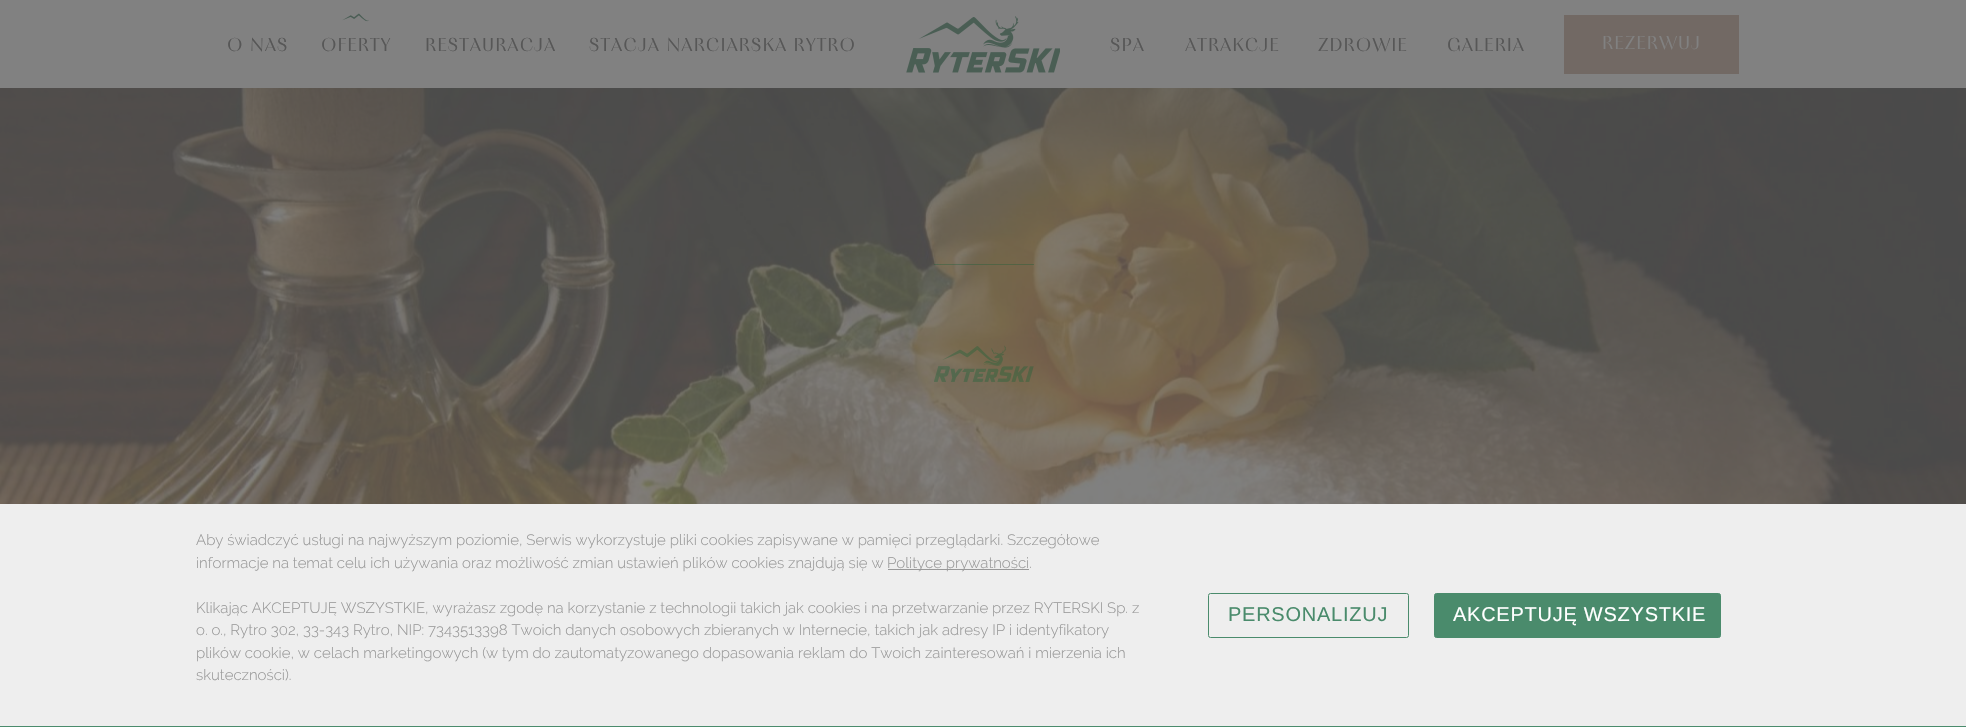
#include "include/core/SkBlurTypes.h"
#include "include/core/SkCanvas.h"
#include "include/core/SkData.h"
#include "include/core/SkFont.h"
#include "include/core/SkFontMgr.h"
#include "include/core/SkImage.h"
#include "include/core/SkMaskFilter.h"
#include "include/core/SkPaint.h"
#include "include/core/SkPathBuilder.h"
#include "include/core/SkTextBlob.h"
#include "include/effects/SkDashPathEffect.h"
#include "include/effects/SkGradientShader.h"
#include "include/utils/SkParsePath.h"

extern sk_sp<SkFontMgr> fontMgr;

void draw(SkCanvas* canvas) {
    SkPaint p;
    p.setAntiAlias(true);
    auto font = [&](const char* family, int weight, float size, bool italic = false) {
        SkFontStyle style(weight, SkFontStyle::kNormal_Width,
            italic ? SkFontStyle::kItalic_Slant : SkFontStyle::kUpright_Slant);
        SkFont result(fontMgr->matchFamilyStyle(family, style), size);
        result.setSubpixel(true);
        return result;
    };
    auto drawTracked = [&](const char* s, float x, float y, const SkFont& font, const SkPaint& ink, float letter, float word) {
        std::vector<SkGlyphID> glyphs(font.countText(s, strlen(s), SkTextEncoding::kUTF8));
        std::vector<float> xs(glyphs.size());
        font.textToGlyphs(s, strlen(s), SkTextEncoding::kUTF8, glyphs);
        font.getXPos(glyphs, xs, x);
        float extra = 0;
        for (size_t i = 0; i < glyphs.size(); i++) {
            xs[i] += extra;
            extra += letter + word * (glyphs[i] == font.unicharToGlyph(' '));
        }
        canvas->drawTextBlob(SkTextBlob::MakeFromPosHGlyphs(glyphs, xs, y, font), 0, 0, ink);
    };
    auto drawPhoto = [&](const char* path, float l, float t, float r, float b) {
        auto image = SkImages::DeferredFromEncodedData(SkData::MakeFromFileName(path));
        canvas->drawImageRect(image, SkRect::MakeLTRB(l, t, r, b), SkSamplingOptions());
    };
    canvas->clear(0xFFFFFFFF);
    p.setColor(0xFF818181);
    canvas->drawRect(SkRect::MakeLTRB(0, 0, 1966, 88), p);
    auto font1 = font("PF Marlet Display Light", 300, 18.75f);
    p.setColor(0xFF575757);
    drawTracked("O NAS", 227, 51, font1, p, 1, 0);
    drawPhoto("media/1.png", 342, 13, 369, 22);
    {
        const struct { const char* s; float x, y; } items[] = {
            {"OFERTY", 321, 51},
            {"RESTAURACJA", 425, 51},
            {"STACJA NARCIARSKA RYTRO", 589, 51},
        };
        for (auto [s, x, y] : items) {
            drawTracked(s, x, y, font1, p, 1, 0);
        }
    }
    drawPhoto("media/2.png", 906, 16, 1060, 73);
    {
        const struct { const char* s; float x, y; } items[] = {
            {"SPA", 1110, 51},
            {"ATRAKCJE", 1185, 51},
            {"ZDROWIE", 1318, 51},
            {"GALERIA", 1447, 51},
        };
        for (auto [s, x, y] : items) {
            drawTracked(s, x, y, font1, p, 1, 0);
        }
    }
    p.setColor(0xFF726964);
    canvas->drawRect(SkRect::MakeLTRB(1564, 15, 1739, 74), p);
    p.setColor(0xFF818181);
    drawTracked("REZERWUJ", 1602, 49, font1, p, 1, 0);
    drawPhoto("media/3.png", 0, 88, 1966, 504);
    p.setColor(0x4A005B30);
    canvas->drawRect(SkRect::MakeLTRB(934, 264, 1034, 265), p);
    drawPhoto("media/4.png", 934, 345, 1034, 382);
    p.setColor(0xFFEEEEEE);
    canvas->drawRect(SkRect::MakeLTRB(0, 504, 1966, 726), p);
    p.setColor(0xFF4A8B6C);
    canvas->drawRect(SkRect::MakeLTRB(0, 726, 1966, 727), p);
    auto font2 = font("Raleway", 300, 15);
    p.setColor(0xFF999999);
    canvas->drawString("Aby świadczyć usługi na najwyższym poziomie, Serwis wykorzystuje pliki cookies zapisywane w pamięci przeglądarki. Szczegółowe", 196, 545, font2, p);
    canvas->drawString("informacje na temat celu ich używania oraz możliwość zmian ustawień plików cookies znajdują się w", 196, 568, font2, p);
    canvas->drawRect(SkRect::MakeLTRB(888, 569, 1029, 570), p);
    {
        const struct { const char* s; float x, y; } items[] = {
            {"Polityce prywatności.", 887, 568},
            {"Klikając AKCEPTUJĘ WSZYSTKIE, wyrażasz zgodę na korzystanie z technologii takich jak cookies i na przetwarzanie przez RYTERSKI Sp. z", 196, 613},
            {"o. o., Rytro 302, 33-343 Rytro, NIP: 7343513398 Twoich danych osobowych zbieranych w Internecie, takich jak adresy IP i identyfikatory", 196, 635},
            {"plików cookie, w celach marketingowych (w tym do zautomatyzowanego dopasowania reklam do Twoich zainteresowań i mierzenia ich", 196, 658},
            {"skuteczności).", 196, 680},
        };
        for (auto [s, x, y] : items) {
            canvas->drawString(s, x, y, font2, p);
        }
    }
    p.setStyle(SkPaint::kStroke_Style);
    p.setStrokeWidth(1);
    p.setColor(0xFF4A8B6C);
    canvas->drawRoundRect(SkRect::MakeLTRB(1208.5f, 593.5f, 1408.5f, 637.5f), 2, 2, p);
    auto font3 = font("Liberation Sans", 400, 20);
    p.setStyle(SkPaint::kFill_Style);
    drawTracked("PERSONALIZUJ", 1228, 621, font3, p, 0.75f, 0);
    canvas->drawRoundRect(SkRect::MakeLTRB(1434.5f, 593.5f, 1720.5f, 637.5f), 2, 2, p);
    p.setStyle(SkPaint::kStroke_Style);
    canvas->drawRoundRect(SkRect::MakeLTRB(1434.5f, 593.5f, 1720.5f, 637.5f), 2, 2, p);
    p.setStyle(SkPaint::kFill_Style);
    p.setColor(0xFFFFFFFF);
    drawTracked("AKCEPTUJĘ WSZYSTKIE", 1453, 621, font3, p, 0.75f, 0);
}
